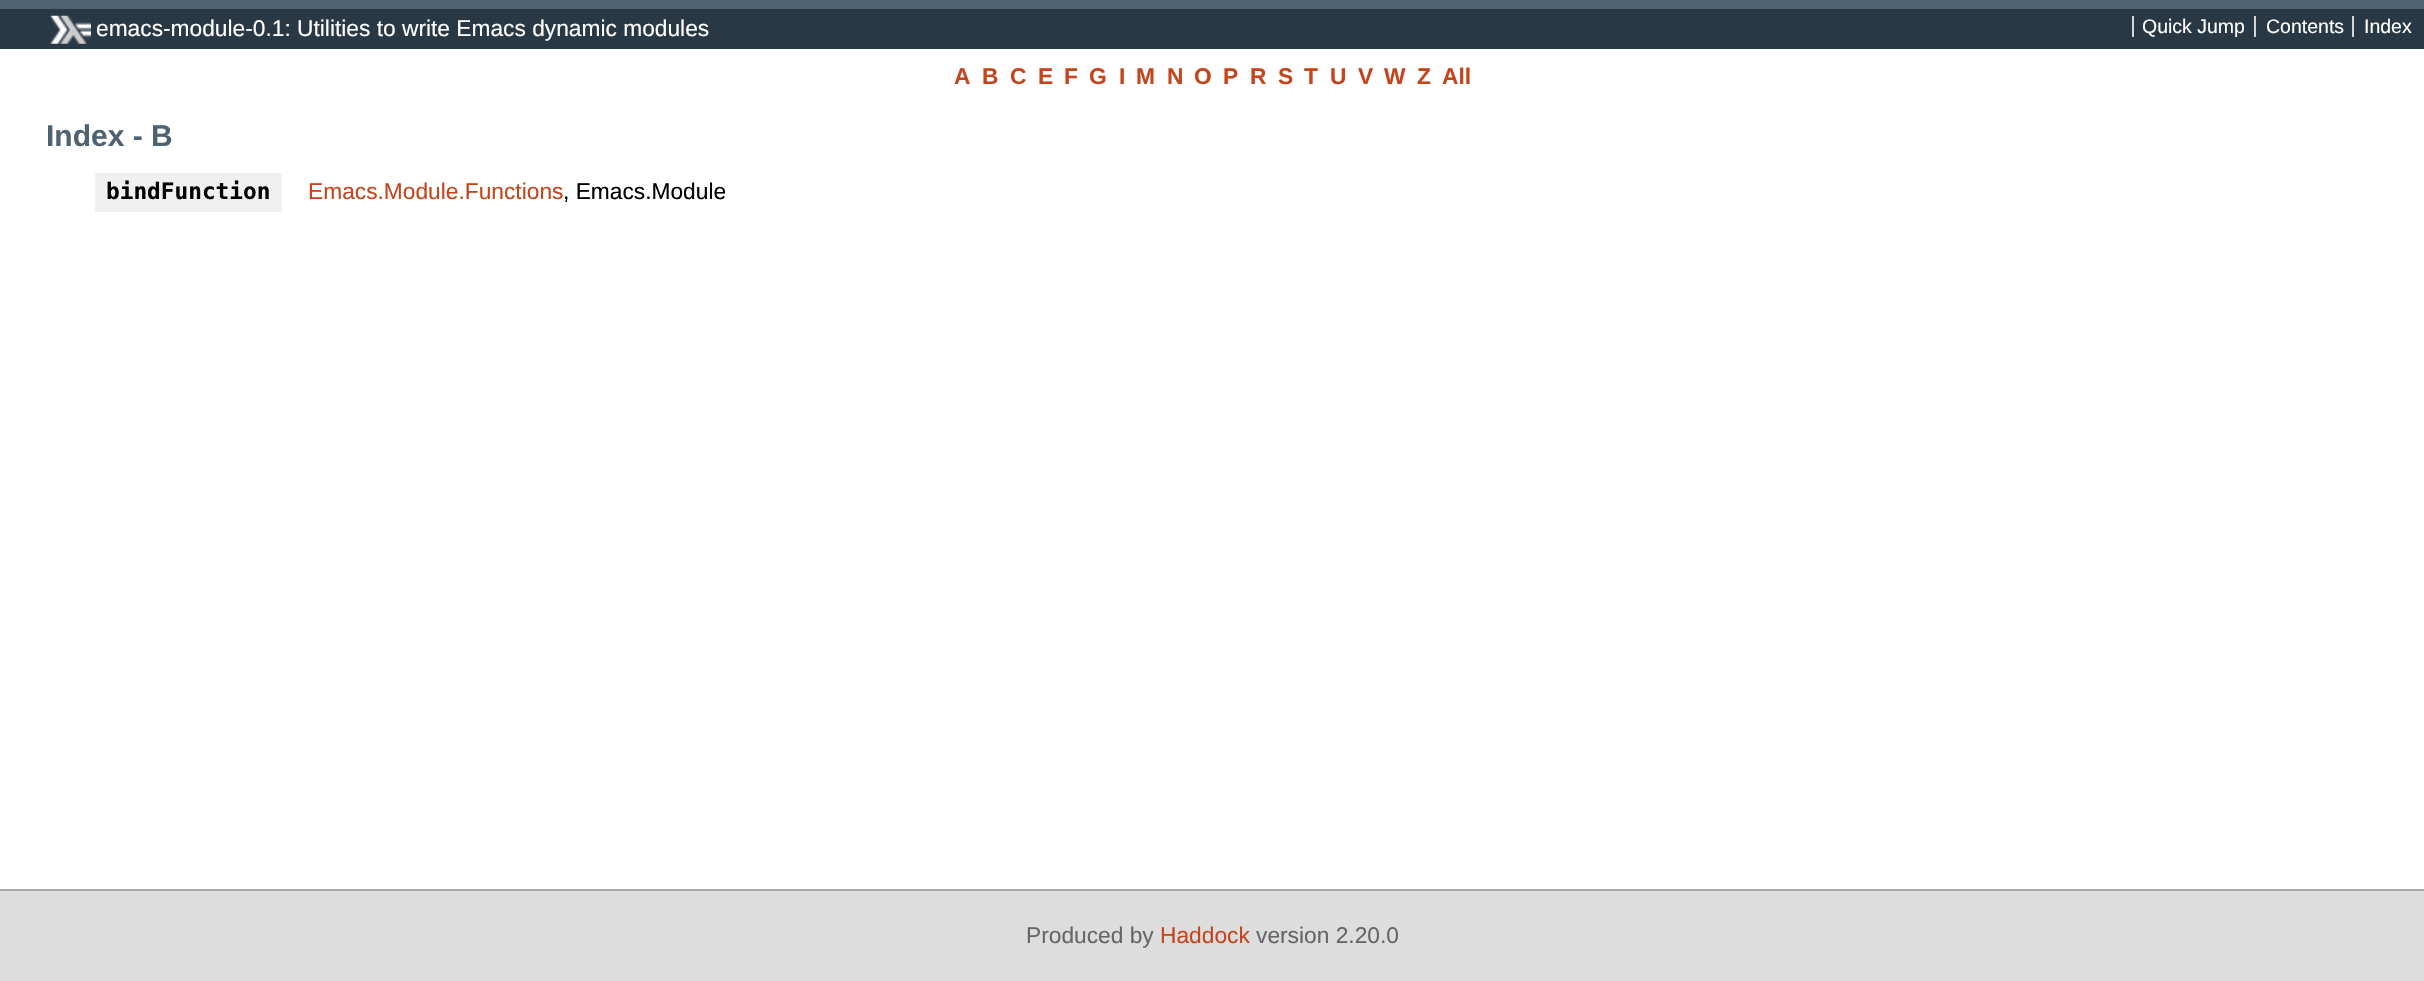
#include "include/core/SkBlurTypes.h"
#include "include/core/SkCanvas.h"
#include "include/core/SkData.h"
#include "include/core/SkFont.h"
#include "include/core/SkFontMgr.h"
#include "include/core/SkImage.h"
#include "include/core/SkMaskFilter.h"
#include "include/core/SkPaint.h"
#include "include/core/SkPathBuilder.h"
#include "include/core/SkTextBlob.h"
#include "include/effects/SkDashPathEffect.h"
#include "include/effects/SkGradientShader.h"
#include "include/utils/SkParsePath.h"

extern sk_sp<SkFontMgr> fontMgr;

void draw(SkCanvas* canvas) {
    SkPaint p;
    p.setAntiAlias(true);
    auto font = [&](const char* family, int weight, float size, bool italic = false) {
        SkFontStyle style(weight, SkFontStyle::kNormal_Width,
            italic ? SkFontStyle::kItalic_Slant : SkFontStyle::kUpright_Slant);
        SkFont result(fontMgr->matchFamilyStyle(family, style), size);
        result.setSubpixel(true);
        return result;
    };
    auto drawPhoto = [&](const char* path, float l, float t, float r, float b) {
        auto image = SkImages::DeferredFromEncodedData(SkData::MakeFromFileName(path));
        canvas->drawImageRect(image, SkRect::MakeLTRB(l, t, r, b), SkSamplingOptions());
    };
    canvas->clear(0xFFFFFFFF);
    p.setColor(0xFF293845);
    canvas->drawRect(SkRect::MakeLTRB(0, 9, 2424, 49), p);
    p.setColor(0xFF4E6272);
    canvas->drawRect(SkRect::MakeLTRB(0, 0, 2424, 9), p);
    drawPhoto("media/1.png", 50, 15, 91, 44);
    auto font1 = font("Liberation Sans", 400, 22.75f);
    p.setColor(0xFFFFFFFF);
    canvas->drawString("emacs-module-0.1: Utilities to write Emacs dynamic modules", 96, 36, font1, p);
    auto font2 = font("Liberation Sans", 400, 19.5f);
    canvas->drawString("Quick Jump", 2142, 33, font2, p);
    p.setColor(0xFFD5D5D5);
    canvas->drawRect(SkRect::MakeLTRB(2132, 16, 2134, 37), p);
    p.setColor(0xFFFFFFFF);
    canvas->drawString("Contents", 2266, 33, font2, p);
    p.setColor(0xFFD5D5D5);
    canvas->drawRect(SkRect::MakeLTRB(2254, 16, 2256, 37), p);
    p.setColor(0xFFFFFFFF);
    canvas->drawString("Index", 2364, 33, font2, p);
    p.setColor(0xFFD5D5D5);
    canvas->drawRect(SkRect::MakeLTRB(2352, 16, 2354, 37), p);
    auto font3 = font("Liberation Sans", 700, 22.75f);
    p.setColor(0xFFC4451D);
    {
        const struct { const char* s; float x, y; } items[] = {
            {"A", 954, 84},
            {"B", 982, 84},
            {"C", 1010, 84},
            {"E", 1038, 84},
            {"F", 1064, 84},
            {"G", 1089, 84},
            {"I", 1119, 84},
            {"M", 1136, 84},
            {"N", 1167, 84},
            {"O", 1194, 84},
            {"P", 1223, 84},
            {"R", 1250, 84},
            {"S", 1278, 84},
            {"T", 1304, 84},
            {"U", 1330, 84},
            {"V", 1358, 84},
            {"W", 1384, 84},
            {"Z", 1417, 84},
            {"All", 1442, 84},
        };
        for (auto [s, x, y] : items) {
            canvas->drawString(s, x, y, font3, p);
        }
    }
    auto font4 = font("Liberation Sans", 700, 30);
    p.setColor(0xFF4E6272);
    canvas->drawString("Index - B", 46, 146, font4, p);
    p.setColor(0xFFF0F0F0);
    canvas->drawRect(SkRect::MakeLTRB(95, 173, 282, 212), p);
    auto font5 = font("DejaVu Sans Mono", 700, 22.75f);
    p.setColor(0xFF000000);
    canvas->drawString("bindFunction", 106, 199, font5, p);
    p.setColor(0xFFC4451D);
    canvas->drawString("Emacs.Module.Functions", 308, 199, font1, p);
    p.setColor(0xFF000000);
    canvas->drawString(", Emacs.Module", 563, 199, font1, p);
    p.setColor(0xFFDDDDDD);
    canvas->drawRect(SkRect::MakeLTRB(0, 891, 2424, 981), p);
    p.setColor(0xFFAAAAAA);
    canvas->drawRect(SkRect::MakeLTRB(0, 889, 2424, 891), p);
    p.setColor(0xFF666666);
    canvas->drawString("Produced by", 1026, 943, font1, p);
    p.setColor(0xFFC4451D);
    canvas->drawString("Haddock", 1160, 943, font1, p);
    p.setColor(0xFF666666);
    canvas->drawString("version 2.20.0", 1256, 943, font1, p);
}
